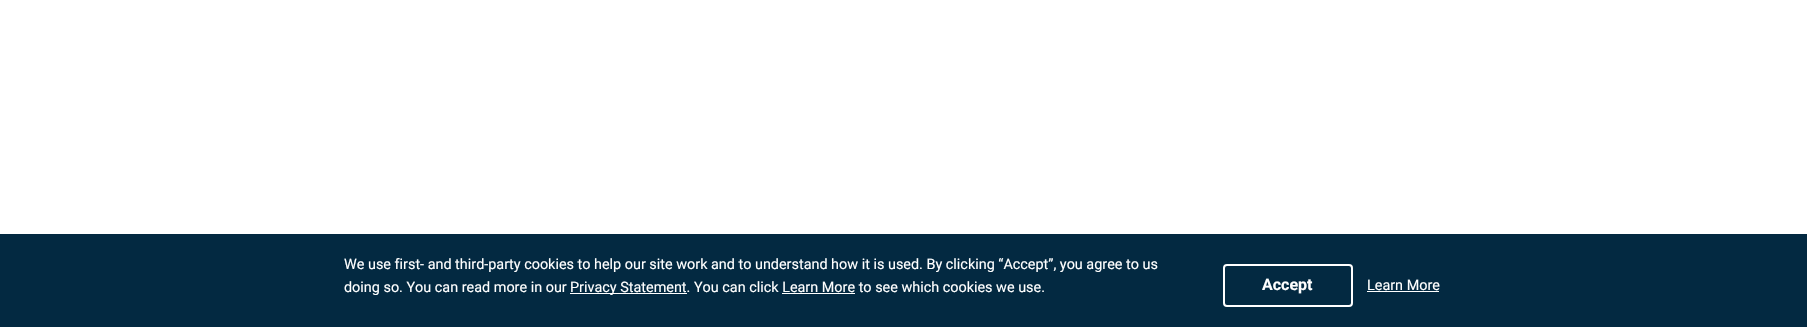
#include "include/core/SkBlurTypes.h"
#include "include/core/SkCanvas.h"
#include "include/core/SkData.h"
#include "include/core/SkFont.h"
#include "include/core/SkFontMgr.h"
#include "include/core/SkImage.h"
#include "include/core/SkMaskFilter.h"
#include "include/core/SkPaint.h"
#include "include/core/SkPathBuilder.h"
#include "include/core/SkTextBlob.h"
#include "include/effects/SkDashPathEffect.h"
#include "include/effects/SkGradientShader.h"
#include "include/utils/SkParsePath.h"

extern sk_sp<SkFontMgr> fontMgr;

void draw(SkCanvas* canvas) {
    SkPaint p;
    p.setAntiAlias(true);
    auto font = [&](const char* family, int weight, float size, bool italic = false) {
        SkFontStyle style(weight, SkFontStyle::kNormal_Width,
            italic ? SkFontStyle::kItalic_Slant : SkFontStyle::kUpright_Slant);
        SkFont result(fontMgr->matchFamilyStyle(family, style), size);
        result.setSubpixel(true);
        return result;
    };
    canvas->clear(0xFFFFFFFF);
    p.setColor(0xFF032941);
    canvas->drawRect(SkRect::MakeLTRB(0, 234, 1807, 327), p);
    auto font1 = font("Roboto", 400, 14.4f);
    p.setColor(0xFFFFFFFF);
    canvas->drawString("We use first- and third-party cookies to help our site work and to understand how it is used. By clicking “Accept”, you agree to us", 344, 269, font1, p);
    canvas->drawString("doing so. You can read more in our", 344, 292, font1, p);
    canvas->drawRect(SkRect::MakeLTRB(570, 293, 687, 294), p);
    canvas->drawString("Privacy Statement. You can click Learn More to see which cookies we use.", 570, 292, font1, p);
    canvas->drawRect(SkRect::MakeLTRB(782, 293, 855, 294), p);
    p.setStyle(SkPaint::kStroke_Style);
    p.setStrokeWidth(2);
    canvas->drawRoundRect(SkRect::MakeLTRB(1224, 265, 1352, 306), 3, 3, p);
    auto font2 = font("Roboto", 700, 16);
    p.setStyle(SkPaint::kFill_Style);
    canvas->drawString("Accept", 1262, 290, font2, p);
    canvas->drawString("Learn More", 1367, 290, font1, p);
    canvas->drawRect(SkRect::MakeLTRB(1367, 291, 1439, 292), p);
}
